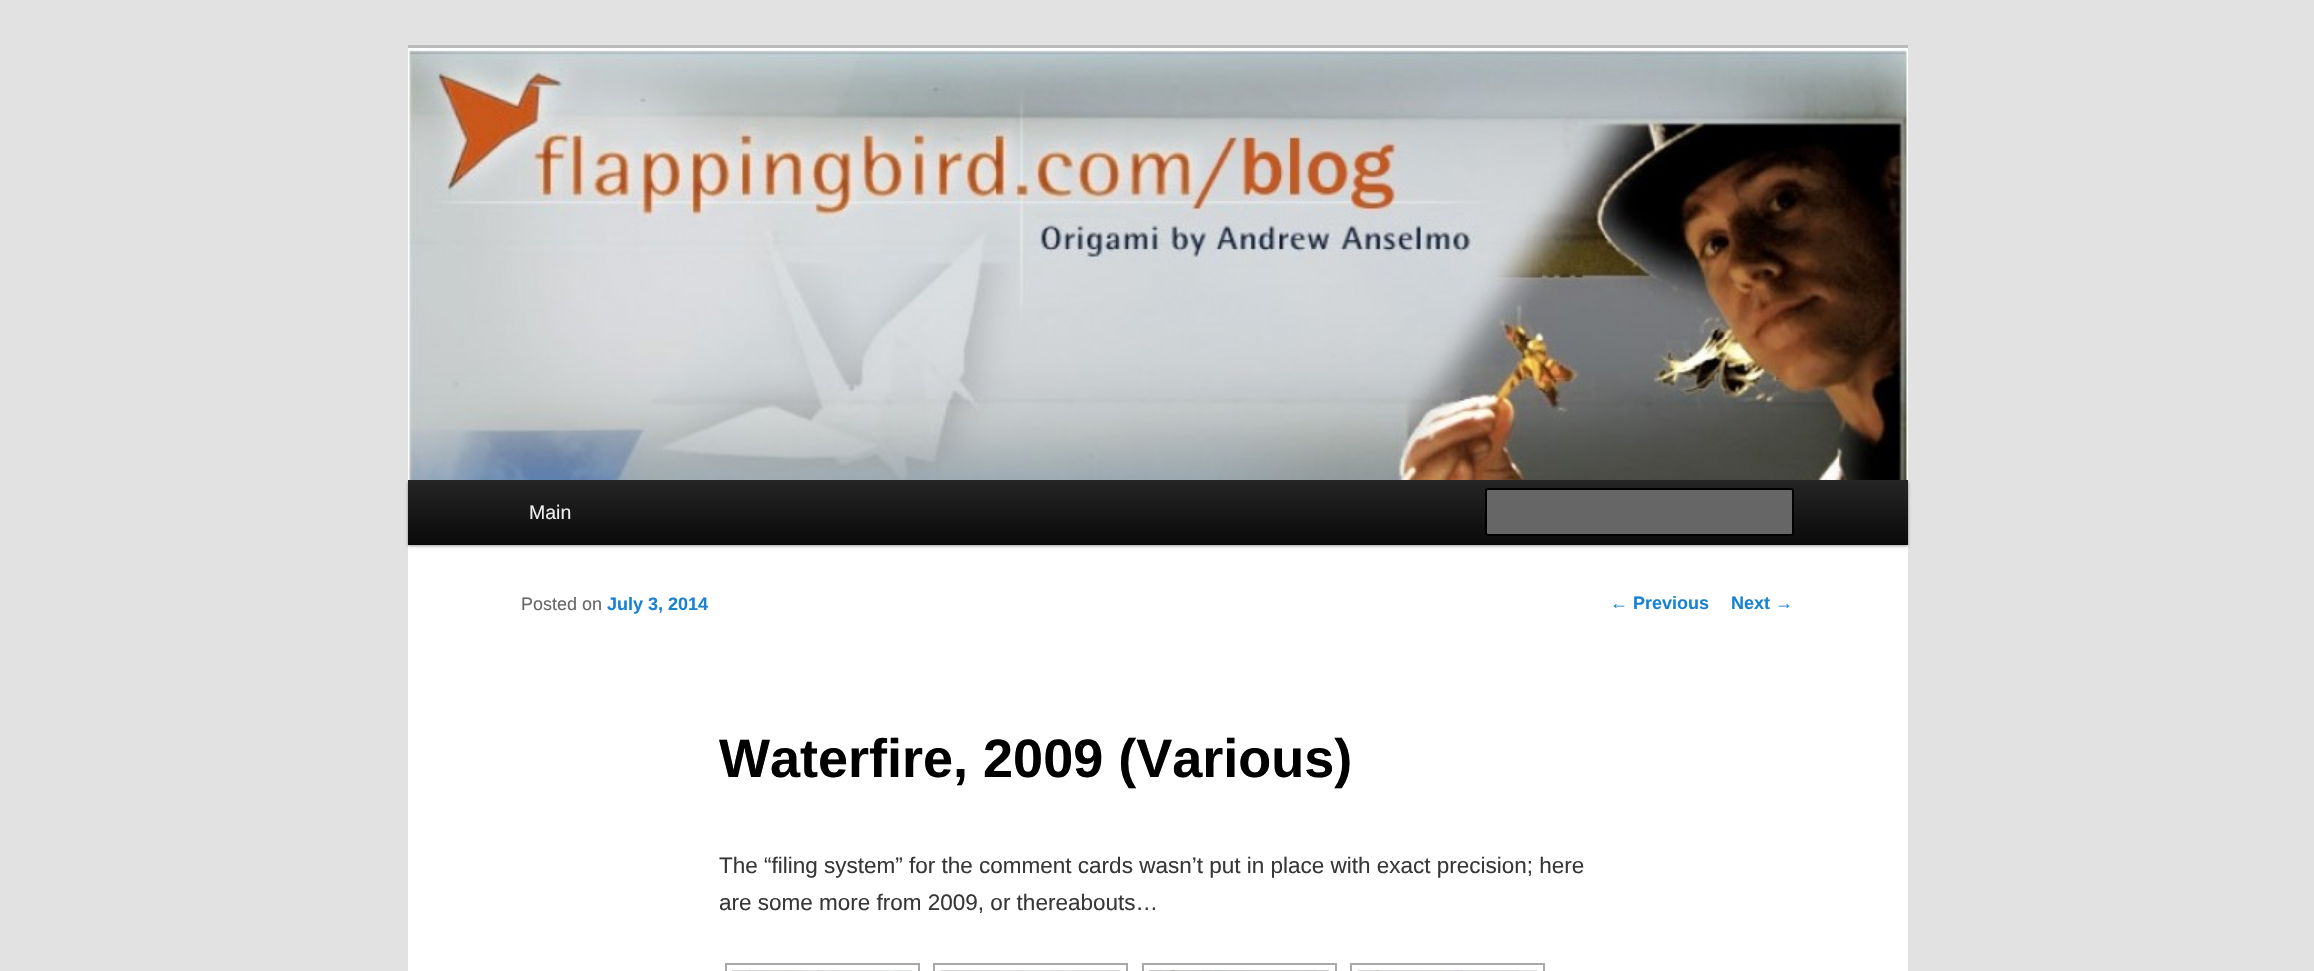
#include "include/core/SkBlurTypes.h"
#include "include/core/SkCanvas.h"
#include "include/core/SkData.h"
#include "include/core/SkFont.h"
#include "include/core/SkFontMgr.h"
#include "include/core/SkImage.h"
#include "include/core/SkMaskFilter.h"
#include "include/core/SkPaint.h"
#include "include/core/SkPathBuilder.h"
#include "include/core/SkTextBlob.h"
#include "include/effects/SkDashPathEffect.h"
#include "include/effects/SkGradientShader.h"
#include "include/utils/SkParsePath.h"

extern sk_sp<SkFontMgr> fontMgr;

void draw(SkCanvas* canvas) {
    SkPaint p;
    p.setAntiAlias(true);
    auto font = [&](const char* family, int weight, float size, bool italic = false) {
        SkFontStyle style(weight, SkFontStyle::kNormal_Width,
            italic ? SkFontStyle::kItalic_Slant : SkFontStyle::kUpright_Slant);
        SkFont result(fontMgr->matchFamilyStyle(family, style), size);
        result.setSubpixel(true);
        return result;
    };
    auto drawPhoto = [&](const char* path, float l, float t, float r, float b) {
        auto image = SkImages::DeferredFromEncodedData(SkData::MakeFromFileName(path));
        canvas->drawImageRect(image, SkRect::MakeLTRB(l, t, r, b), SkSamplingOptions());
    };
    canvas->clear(0xFFE2E2E2);
    p.setColor(0xFFFFFFFF);
    canvas->drawRect(SkRect::MakeLTRB(408, 545, 1908, 971), p);
    p.setColor(0xFFBBBBBB);
    canvas->drawRect(SkRect::MakeLTRB(408, 45, 1908, 48), p);
    p.setColor(0x66000000);
    p.setMaskFilter(SkMaskFilter::MakeBlur(kNormal_SkBlurStyle, 1.5f));
    canvas->drawRect(SkRect::MakeLTRB(408, 482, 1908, 546), p);
    p.setMaskFilter(nullptr);
    drawPhoto("media/1.png", 408, 48, 1908, 480);
    {
        const SkColor colors[] = {0xFF252525, 0xFF0A0A0A};
        const float stops[] = {0, 1};
        const SkPoint ends[] = {{1158, 480}, {1158, 545}};
        p.setShader(SkGradientShader::MakeLinear(ends, colors, stops, 2, SkTileMode::kClamp));
        p.setAlpha(255);
    }
    canvas->drawRect(SkRect::MakeLTRB(408, 480, 1908, 545), p);
    auto font1 = font("Liberation Sans", 400, 19.5f);
    p.setShader(nullptr);
    p.setColor(0xFFEEEEEE);
    canvas->drawString("Main", 529, 519, font1, p);
    p.setColor(0xFF666666);
    canvas->drawRoundRect(SkRect::MakeLTRB(1486, 489, 1793, 535), 2, 2, p);
    p.setStyle(SkPaint::kStroke_Style);
    p.setStrokeWidth(2);
    p.setColor(0xFF000000);
    canvas->drawRoundRect(SkRect::MakeLTRB(1486, 489, 1793, 535), 2, 2, p);
    auto font2 = font("Liberation Sans", 400, 18);
    p.setStyle(SkPaint::kFill_Style);
    p.setColor(0xFF666666);
    canvas->drawString("Posted on", 521, 610, font2, p);
    auto font3 = font("Liberation Sans", 700, 18);
    p.setColor(0xFF1982D1);
    canvas->drawString("July 3, 2014", 607, 610, font3, p);
    auto font4 = font("Liberation Sans", 700, 54);
    p.setColor(0xFF000000);
    canvas->drawString("Waterfire, 2009 (Various)", 719, 777, font4, p);
    auto font5 = font("Liberation Sans", 400, 22.5f);
    p.setColor(0xFF373737);
    canvas->drawString("The “filing system” for the comment cards wasn’t put in place with exact precision; here", 719, 873, font5, p);
    canvas->drawString("are some more from 2009, or thereabouts…", 719, 910, font5, p);
    p.setStyle(SkPaint::kStroke_Style);
    p.setColor(0xFFA9A9A9);
    canvas->drawRect(SkRect::MakeLTRB(726, 964, 919, 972), p);
    drawPhoto("media/2.png", 732, 970, 912, 971);
    canvas->drawRect(SkRect::MakeLTRB(934, 964, 1127, 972), p);
    drawPhoto("media/3.png", 940, 970, 1121, 971);
    canvas->drawRect(SkRect::MakeLTRB(1143, 964, 1336, 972), p);
    drawPhoto("media/4.png", 1149, 970, 1329, 971);
    canvas->drawRect(SkRect::MakeLTRB(1351, 964, 1544, 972), p);
    drawPhoto("media/5.png", 1357, 970, 1538, 971);
    p.setStyle(SkPaint::kFill_Style);
    p.setColor(0xFF1982D1);
    canvas->drawString("←", 1610, 609, font2, p);
    canvas->drawString("Previous", 1633, 609, font3, p);
    canvas->drawString("Next", 1731, 609, font3, p);
    canvas->drawString("→", 1775, 609, font2, p);
}
